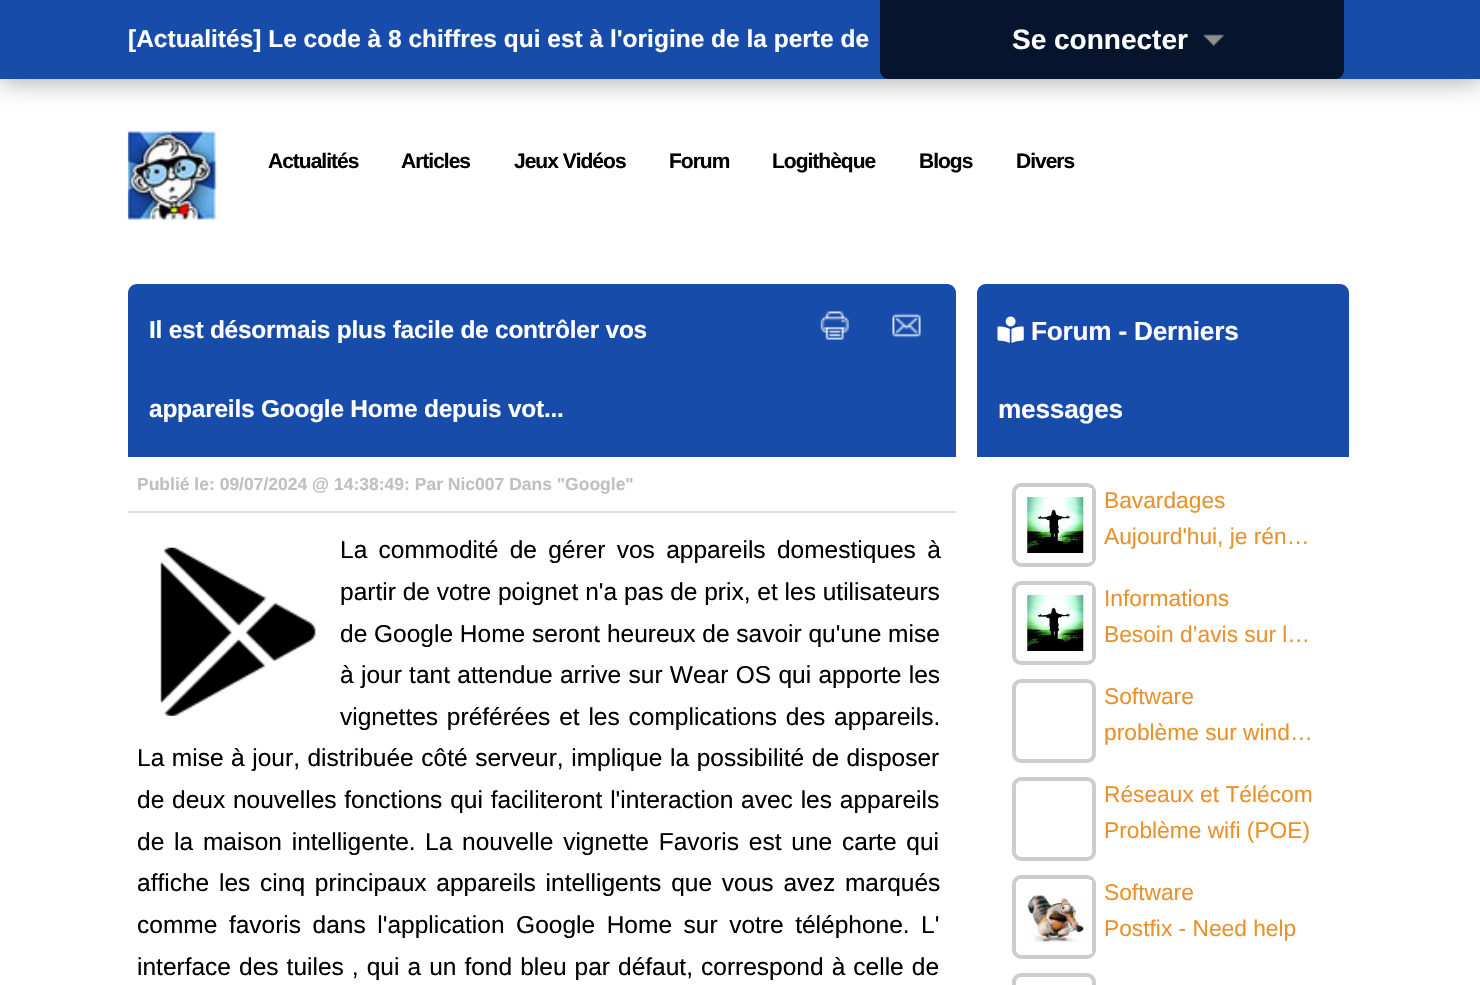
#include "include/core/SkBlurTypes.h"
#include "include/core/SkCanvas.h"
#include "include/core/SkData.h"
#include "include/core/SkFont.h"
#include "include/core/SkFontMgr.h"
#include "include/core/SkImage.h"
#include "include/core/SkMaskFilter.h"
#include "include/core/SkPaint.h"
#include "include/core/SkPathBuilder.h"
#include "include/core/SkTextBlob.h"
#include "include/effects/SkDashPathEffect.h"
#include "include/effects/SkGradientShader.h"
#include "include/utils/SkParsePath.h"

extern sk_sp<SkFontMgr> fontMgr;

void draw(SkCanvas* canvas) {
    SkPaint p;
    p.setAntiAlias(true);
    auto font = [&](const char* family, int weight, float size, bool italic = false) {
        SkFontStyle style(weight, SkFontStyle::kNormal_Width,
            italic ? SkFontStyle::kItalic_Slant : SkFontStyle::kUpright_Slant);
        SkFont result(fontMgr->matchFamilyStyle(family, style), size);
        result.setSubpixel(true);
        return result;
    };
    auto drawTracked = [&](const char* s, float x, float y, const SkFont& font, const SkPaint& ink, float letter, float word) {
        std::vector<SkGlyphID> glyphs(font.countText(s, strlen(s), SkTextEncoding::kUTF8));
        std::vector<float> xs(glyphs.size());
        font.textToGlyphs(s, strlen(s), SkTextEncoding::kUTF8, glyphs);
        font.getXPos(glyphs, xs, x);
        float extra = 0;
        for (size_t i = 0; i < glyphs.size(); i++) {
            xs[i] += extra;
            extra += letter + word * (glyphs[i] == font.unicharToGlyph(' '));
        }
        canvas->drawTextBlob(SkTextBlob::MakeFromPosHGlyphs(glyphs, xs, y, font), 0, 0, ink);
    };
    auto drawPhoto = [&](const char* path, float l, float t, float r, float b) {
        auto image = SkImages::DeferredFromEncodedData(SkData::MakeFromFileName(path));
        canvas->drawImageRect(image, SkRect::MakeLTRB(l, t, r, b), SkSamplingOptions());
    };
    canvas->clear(0xFFFFFFFF);
    p.setColor(0x66000000);
    p.setMaskFilter(SkMaskFilter::MakeBlur(kNormal_SkBlurStyle, 14));
    canvas->drawRect(SkRect::MakeLTRB(0, 0, 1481, 79), p);
    p.setMaskFilter(nullptr);
    p.setColor(0xFF174CAA);
    canvas->drawRect(SkRect::MakeLTRB(0, 0, 1480, 79), p);
    auto font1 = font("Liberation Sans", 700, 24.5f);
    p.setColor(0xFFFFFFFF);
    canvas->drawString("[Actualités] Le code à 8 chiffres qui est à l'origine de la perte de", 128, 47, font1, p);
    p.setColor(0xFF06142D);
    canvas->drawPath(SkPathBuilder().moveTo(880, 0).lineTo(1344, 0).lineTo(1344, 70).cubicTo(1344, 75, 1340, 79, 1335, 79).lineTo(889, 79).cubicTo(884, 79, 880, 75, 880, 70).close().detach(), p);
    auto font2 = font("Liberation Sans", 700, 28);
    p.setColor(0xFFFFFFFF);
    canvas->drawString("Se connecter", 1012, 49, font2, p);
    drawPhoto("media/1.png", 1203, 34, 1224, 46);
    drawPhoto("media/2.png", 127, 131, 221, 221);
    auto font3 = font("Liberation Sans", 700, 21);
    p.setColor(0xFF000000);
    {
        const struct { const char* s; float x, y; } items[] = {
            {"Actualités", 268, 168},
            {"Articles", 401, 168},
            {"Jeux Vidéos", 514, 168},
            {"Forum", 669, 168},
            {"Logithèque", 772, 168},
            {"Blogs", 919, 168},
            {"Divers", 1016, 168},
        };
        for (auto [s, x, y] : items) {
            drawTracked(s, x, y, font3, p, -1, 0);
        }
    }
    p.setColor(0xFF174CAA);
    canvas->drawPath(SkPathBuilder().moveTo(137, 284).lineTo(947, 284).cubicTo(952, 284, 956, 288, 956, 293).lineTo(956, 457).lineTo(128, 457).lineTo(128, 293).cubicTo(128, 288, 132, 284, 137, 284).close().detach(), p);
    p.setColor(0xFFFFFFFF);
    drawTracked("Il est désormais plus facile de contrôler vos", 149, 338, font1, p, -0.25f, 0);
    drawPhoto("media/3.png", 820, 311, 849, 340);
    drawPhoto("media/4.png", 892, 313, 921, 338);
    drawTracked("appareils Google Home depuis vot...", 149, 417, font1, p, -0.25f, 0);
    p.setColor(0xFFE0E0E0);
    canvas->drawRect(SkRect::MakeLTRB(128, 511, 956, 513), p);
    auto font4 = font("Liberation Sans", 700, 17.5f);
    p.setColor(0xFFC0C0C0);
    canvas->drawString("Publié le: 09/07/2024 @ 14:38:49: Par Nic007 Dans \"Google\"", 137, 490, font4, p);
    drawPhoto("media/5.png", 160, 547, 316, 716);
    auto font5 = font("Liberation Sans", 400, 24.5f);
    p.setColor(0xFF000000);
    drawTracked("La commodité de gérer vos appareils domestiques à", 340, 558, font5, p, 0, 4.5f);
    canvas->drawString("partir de votre poignet n'a pas de prix, et les utilisateurs", 340, 600, font5, p);
    canvas->drawString("de Google Home seront heureux de savoir qu'une mise", 340, 642, font5, p);
    drawTracked("à jour tant attendue arrive sur Wear OS qui apporte les", 340, 683, font5, p, 0, 0.5f);
    drawTracked("vignettes préférées et les complications des appareils.", 340, 725, font5, p, 0, 2);
    drawTracked("La mise à jour, distribuée côté serveur, implique la possibilité de disposer", 137, 766, font5, p, 0, 0.75f);
    drawTracked("de deux nouvelles fonctions qui faciliteront l'interaction avec les appareils", 137, 808, font5, p, 0, 1);
    {
        const struct { const char* s; float x, y; } items[] = {
            {"de la maison intelligente.", 137, 850},
            {"La nouvelle vignette Favoris est une carte qui", 425, 850},
            {"affiche les cinq principaux appareils intelligents que vous avez marqués", 137, 891},
        };
        for (auto [s, x, y] : items) {
            drawTracked(s, x, y, font5, p, 0, 3);
        }
    }
    drawTracked("comme favoris dans l'application Google Home sur votre téléphone.", 137, 933, font5, p, 0, 4.75f);
    canvas->drawString("L'", 921, 933, font5, p);
    drawTracked("interface des tuiles , qui a un fond bleu par défaut, correspond à celle de", 137, 975, font5, p, 0, 1.25f);
    p.setColor(0xFF174CAA);
    canvas->drawPath(SkPathBuilder().moveTo(986, 284).lineTo(1340, 284).cubicTo(1345, 284, 1349, 288, 1349, 293).lineTo(1349, 457).lineTo(977, 457).lineTo(977, 293).cubicTo(977, 288, 981, 284, 986, 284).close().detach(), p);
    drawPhoto("media/6.png", 997, 316, 1024, 343);
    auto font6 = font("Liberation Sans", 700, 26.25f);
    p.setColor(0xFFFFFFFF);
    drawTracked("Forum - Derniers", 1031, 340, font6, p, -0.25f, 0);
    drawTracked("messages", 998, 418, font6, p, -0.25f, 0);
    p.setStyle(SkPaint::kStroke_Style);
    p.setStrokeWidth(4);
    p.setColor(0xFFCDCDCD);
    canvas->drawRoundRect(SkRect::MakeLTRB(1014, 485, 1094, 565), 7, 7, p);
    drawPhoto("media/7.png", 1027, 497, 1084, 553);
    p.setStyle(SkPaint::kFill_Style);
    p.setColor(0xFFFFFFFF);
    canvas->drawRect(SkRect::MakeLTRB(1090, 488, 1092, 562), p);
    auto font7 = font("Liberation Sans", 400, 22.75f);
    p.setColor(0xFFE9922B);
    canvas->drawString("Bavardages", 1104, 508, font7, p);
    canvas->drawString("Aujourd'hui, je rén…", 1104, 544, font7, p);
    p.setStyle(SkPaint::kStroke_Style);
    p.setColor(0xFFCDCDCD);
    canvas->drawRoundRect(SkRect::MakeLTRB(1014, 583, 1094, 663), 7, 7, p);
    drawPhoto("media/8.png", 1027, 595, 1084, 651);
    p.setStyle(SkPaint::kFill_Style);
    p.setColor(0xFFFFFFFF);
    canvas->drawRect(SkRect::MakeLTRB(1090, 586, 1092, 660), p);
    p.setColor(0xFFE9922B);
    canvas->drawString("Informations", 1104, 606, font7, p);
    canvas->drawString("Besoin d’avis sur l…", 1104, 642, font7, p);
    p.setStyle(SkPaint::kStroke_Style);
    p.setColor(0xFFCDCDCD);
    canvas->drawRoundRect(SkRect::MakeLTRB(1014, 681, 1094, 761), 7, 7, p);
    p.setStyle(SkPaint::kFill_Style);
    p.setColor(0xFFE9922B);
    canvas->drawString("Software", 1104, 704, font7, p);
    canvas->drawString("problème sur wind…", 1104, 740, font7, p);
    p.setStyle(SkPaint::kStroke_Style);
    p.setColor(0xFFCDCDCD);
    canvas->drawRoundRect(SkRect::MakeLTRB(1014, 779, 1094, 859), 7, 7, p);
    p.setStyle(SkPaint::kFill_Style);
    p.setColor(0xFFE9922B);
    canvas->drawString("Réseaux et Télécom", 1104, 802, font7, p);
    canvas->drawString("Problème wifi (POE)", 1104, 838, font7, p);
    p.setStyle(SkPaint::kStroke_Style);
    p.setColor(0xFFCDCDCD);
    canvas->drawRoundRect(SkRect::MakeLTRB(1014, 877, 1094, 957), 7, 7, p);
    drawPhoto("media/9.png", 1027, 895, 1084, 942);
    p.setStyle(SkPaint::kFill_Style);
    p.setColor(0xFFFFFFFF);
    canvas->drawRect(SkRect::MakeLTRB(1090, 880, 1092, 954), p);
    p.setColor(0xFFE9922B);
    canvas->drawString("Software", 1104, 900, font7, p);
    canvas->drawString("Postfix - Need help", 1104, 936, font7, p);
    p.setStyle(SkPaint::kStroke_Style);
    p.setColor(0xFFCDCDCD);
    canvas->drawRoundRect(SkRect::MakeLTRB(1014, 975, 1094, 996), 7, 7, p);
}
